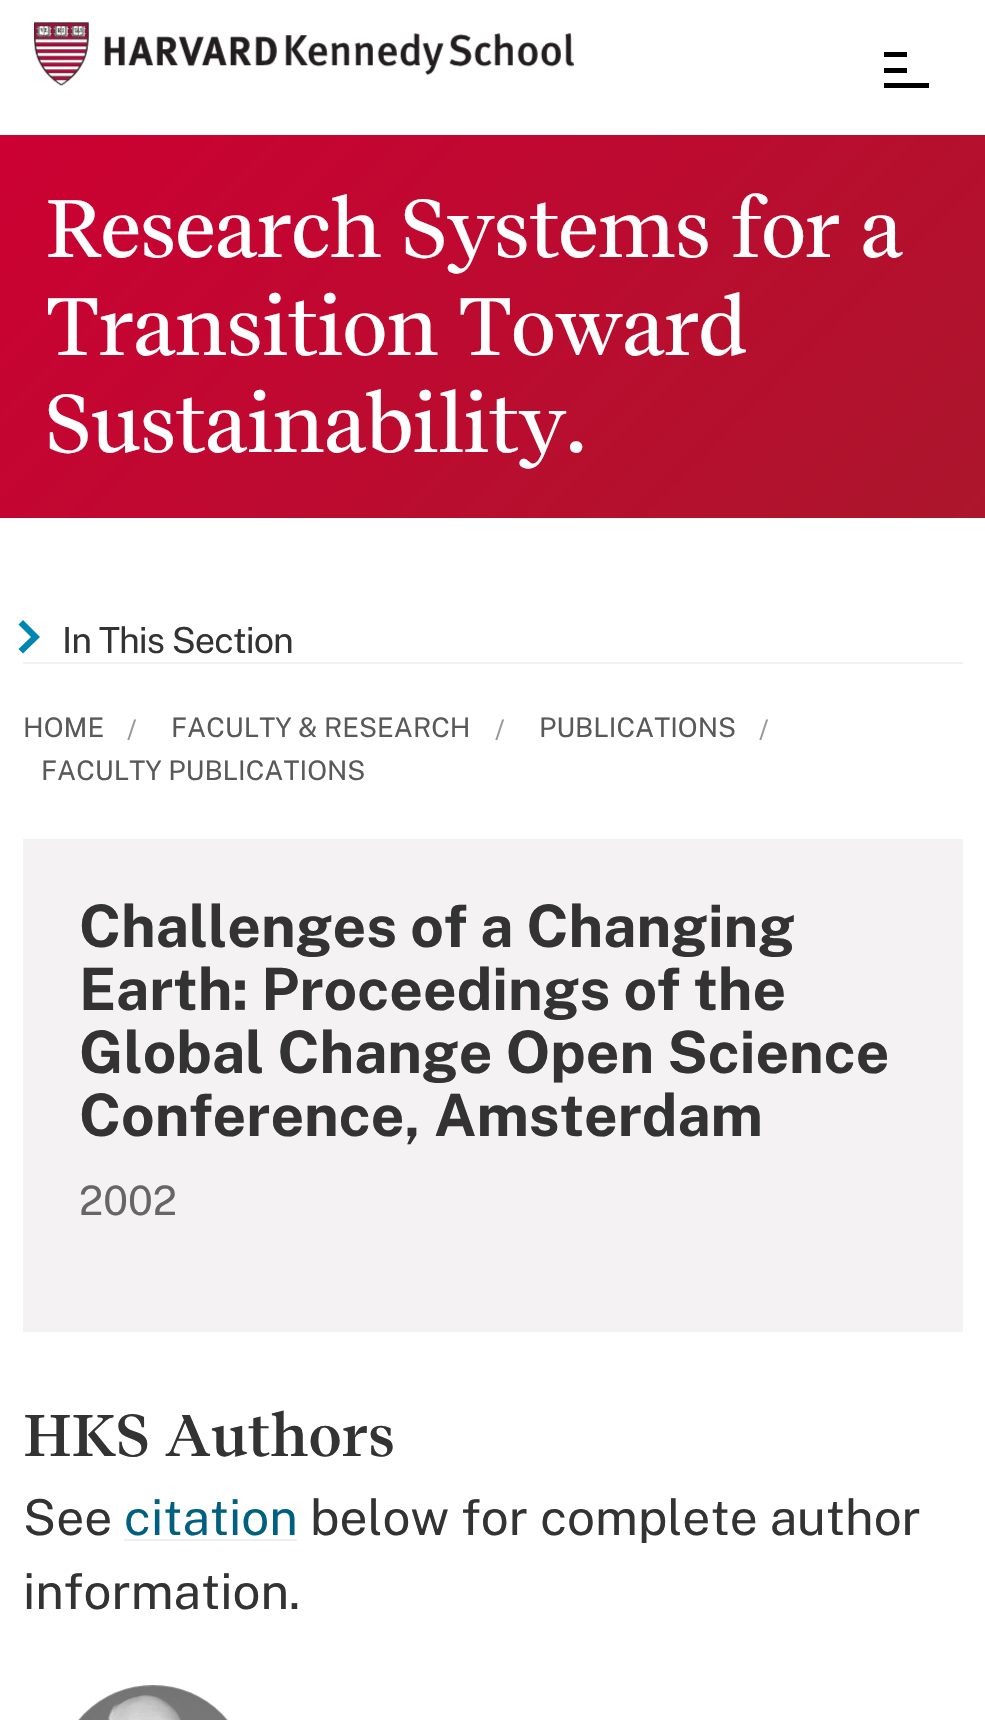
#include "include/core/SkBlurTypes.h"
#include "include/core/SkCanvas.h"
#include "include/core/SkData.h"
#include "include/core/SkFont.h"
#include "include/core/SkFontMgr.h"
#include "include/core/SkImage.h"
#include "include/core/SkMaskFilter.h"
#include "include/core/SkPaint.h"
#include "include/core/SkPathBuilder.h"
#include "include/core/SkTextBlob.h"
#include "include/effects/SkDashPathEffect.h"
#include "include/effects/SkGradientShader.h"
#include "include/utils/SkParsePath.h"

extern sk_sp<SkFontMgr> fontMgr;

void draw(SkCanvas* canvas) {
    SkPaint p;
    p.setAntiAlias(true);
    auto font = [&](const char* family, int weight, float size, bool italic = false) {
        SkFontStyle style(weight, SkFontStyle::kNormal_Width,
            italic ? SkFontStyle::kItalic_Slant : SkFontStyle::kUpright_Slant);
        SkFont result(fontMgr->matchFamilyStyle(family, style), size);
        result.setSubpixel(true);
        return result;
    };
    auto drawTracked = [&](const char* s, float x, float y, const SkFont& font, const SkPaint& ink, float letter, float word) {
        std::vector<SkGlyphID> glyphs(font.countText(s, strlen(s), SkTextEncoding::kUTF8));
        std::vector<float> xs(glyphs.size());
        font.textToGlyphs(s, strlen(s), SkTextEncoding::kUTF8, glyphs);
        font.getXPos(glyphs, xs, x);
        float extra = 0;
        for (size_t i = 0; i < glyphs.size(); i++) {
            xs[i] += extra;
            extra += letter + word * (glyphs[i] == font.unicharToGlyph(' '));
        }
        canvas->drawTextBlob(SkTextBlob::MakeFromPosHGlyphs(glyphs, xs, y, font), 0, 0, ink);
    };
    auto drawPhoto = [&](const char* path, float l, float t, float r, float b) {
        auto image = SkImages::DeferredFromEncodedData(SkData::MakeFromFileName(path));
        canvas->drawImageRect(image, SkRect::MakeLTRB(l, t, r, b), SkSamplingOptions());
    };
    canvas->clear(0xFFFFFFFF);
    drawPhoto("media/1.png", 34, 22, 574, 86);
    {
        const struct { float l, t, r, b; SkColor color; } items[] = {
            {884, 52, 907, 57, 0xFF000000},
            {884, 68, 907, 73, 0xFF000000},
            {884, 83, 929, 88, 0xFF000000},
        };
        for (auto [l, t, r, b, color] : items) {
            p.setColor(color);
            canvas->drawRect(SkRect::MakeLTRB(l, t, r, b), p);
        }
    }
    {
        const SkColor colors[] = {0xFFCC0033, 0xFFAC162C};
        const float stops[] = {0, 1};
        const SkPoint ends[] = {{151, -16}, {835, 668}};
        p.setShader(SkGradientShader::MakeLinear(ends, colors, stops, 2, SkTileMode::kClamp));
        p.setAlpha(255);
    }
    canvas->drawRect(SkRect::MakeLTRB(0, 135, 985, 518), p);
    auto font1 = font("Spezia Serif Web", 500, 81);
    p.setShader(nullptr);
    p.setColor(0xFFFFFFFF);
    {
        const struct { const char* s; float x, y; } items[] = {
            {"Research Systems for a", 45, 257},
            {"Transition Toward", 45, 355},
            {"Sustainability.", 45, 452},
        };
        for (auto [s, x, y] : items) {
            drawTracked(s, x, y, font1, p, -2.25f, 0);
        }
    }
    p.setColor(0xFFEEF2F4);
    canvas->drawRect(SkRect::MakeLTRB(23, 662, 963, 664), p);
    p.setColor(0xFF0086B3);
    canvas->drawPath(SkPathBuilder().moveTo(40, 637).lineTo(23, 620).lineTo(18.5f, 624.5f).lineTo(31, 637).lineTo(18.5f, 649).lineTo(23, 653.5f).close().detach(), p);
    auto font2 = font("Public Sans", 100, 36);
    p.setColor(0xFF333333);
    drawTracked("In This Section", 62, 653, font2, p, -1, 0);
    auto font3 = font("Public Sans", 100, 27);
    p.setColor(0xFF595959);
    canvas->drawString("HOME", 23, 737, font3, p);
    p.setColor(0xFF999999);
    canvas->drawString("/", 127, 739, font3, p);
    p.setColor(0xFF595959);
    canvas->drawString("FACULTY & RESEARCH", 171, 737, font3, p);
    p.setColor(0xFF999999);
    canvas->drawString("/", 495, 739, font3, p);
    p.setColor(0xFF595959);
    canvas->drawString("PUBLICATIONS", 539, 737, font3, p);
    p.setColor(0xFF999999);
    canvas->drawString("/", 759, 739, font3, p);
    p.setColor(0xFF595959);
    canvas->drawString("FACULTY PUBLICATIONS", 41, 780, font3, p);
    p.setColor(0xFFF4F2F3);
    canvas->drawRect(SkRect::MakeLTRB(23, 839, 963, 1332), p);
    auto font4 = font("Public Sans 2", 100, 58.5f);
    p.setColor(0xFF333333);
    {
        const struct { const char* s; float x, y; } items[] = {
            {"Challenges of a Changing", 79, 947},
            {"Earth: Proceedings of the", 79, 1010},
            {"Global Change Open Science", 79, 1073},
            {"Conference, Amsterdam", 79, 1136},
        };
        for (auto [s, x, y] : items) {
            canvas->drawString(s, x, y, font4, p);
        }
    }
    auto font5 = font("Public Sans", 100, 40.5f);
    p.setColor(0xFF666666);
    canvas->drawString("2002", 79, 1215, font5, p);
    auto font6 = font("Spezia Serif Web", 600, 58.5f);
    p.setColor(0xFF333333);
    drawTracked("HKS Authors", 23, 1456, font6, p, -0.75f, 0);
    auto font7 = font("Public Sans", 100, 49.5f);
    canvas->drawString("See", 23, 1535, font7, p);
    p.setColor(0xFF006080);
    canvas->drawString("citation", 124, 1535, font7, p);
    p.setColor(0xFFEEEEEE);
    canvas->drawRect(SkRect::MakeLTRB(124, 1539, 297, 1541), p);
    p.setColor(0xFF333333);
    canvas->drawString("below for complete author", 310, 1535, font7, p);
    canvas->drawString("information.", 23, 1609, font7, p);
    drawPhoto("media/2.png", 78, 1685, 228, 1720);
}
